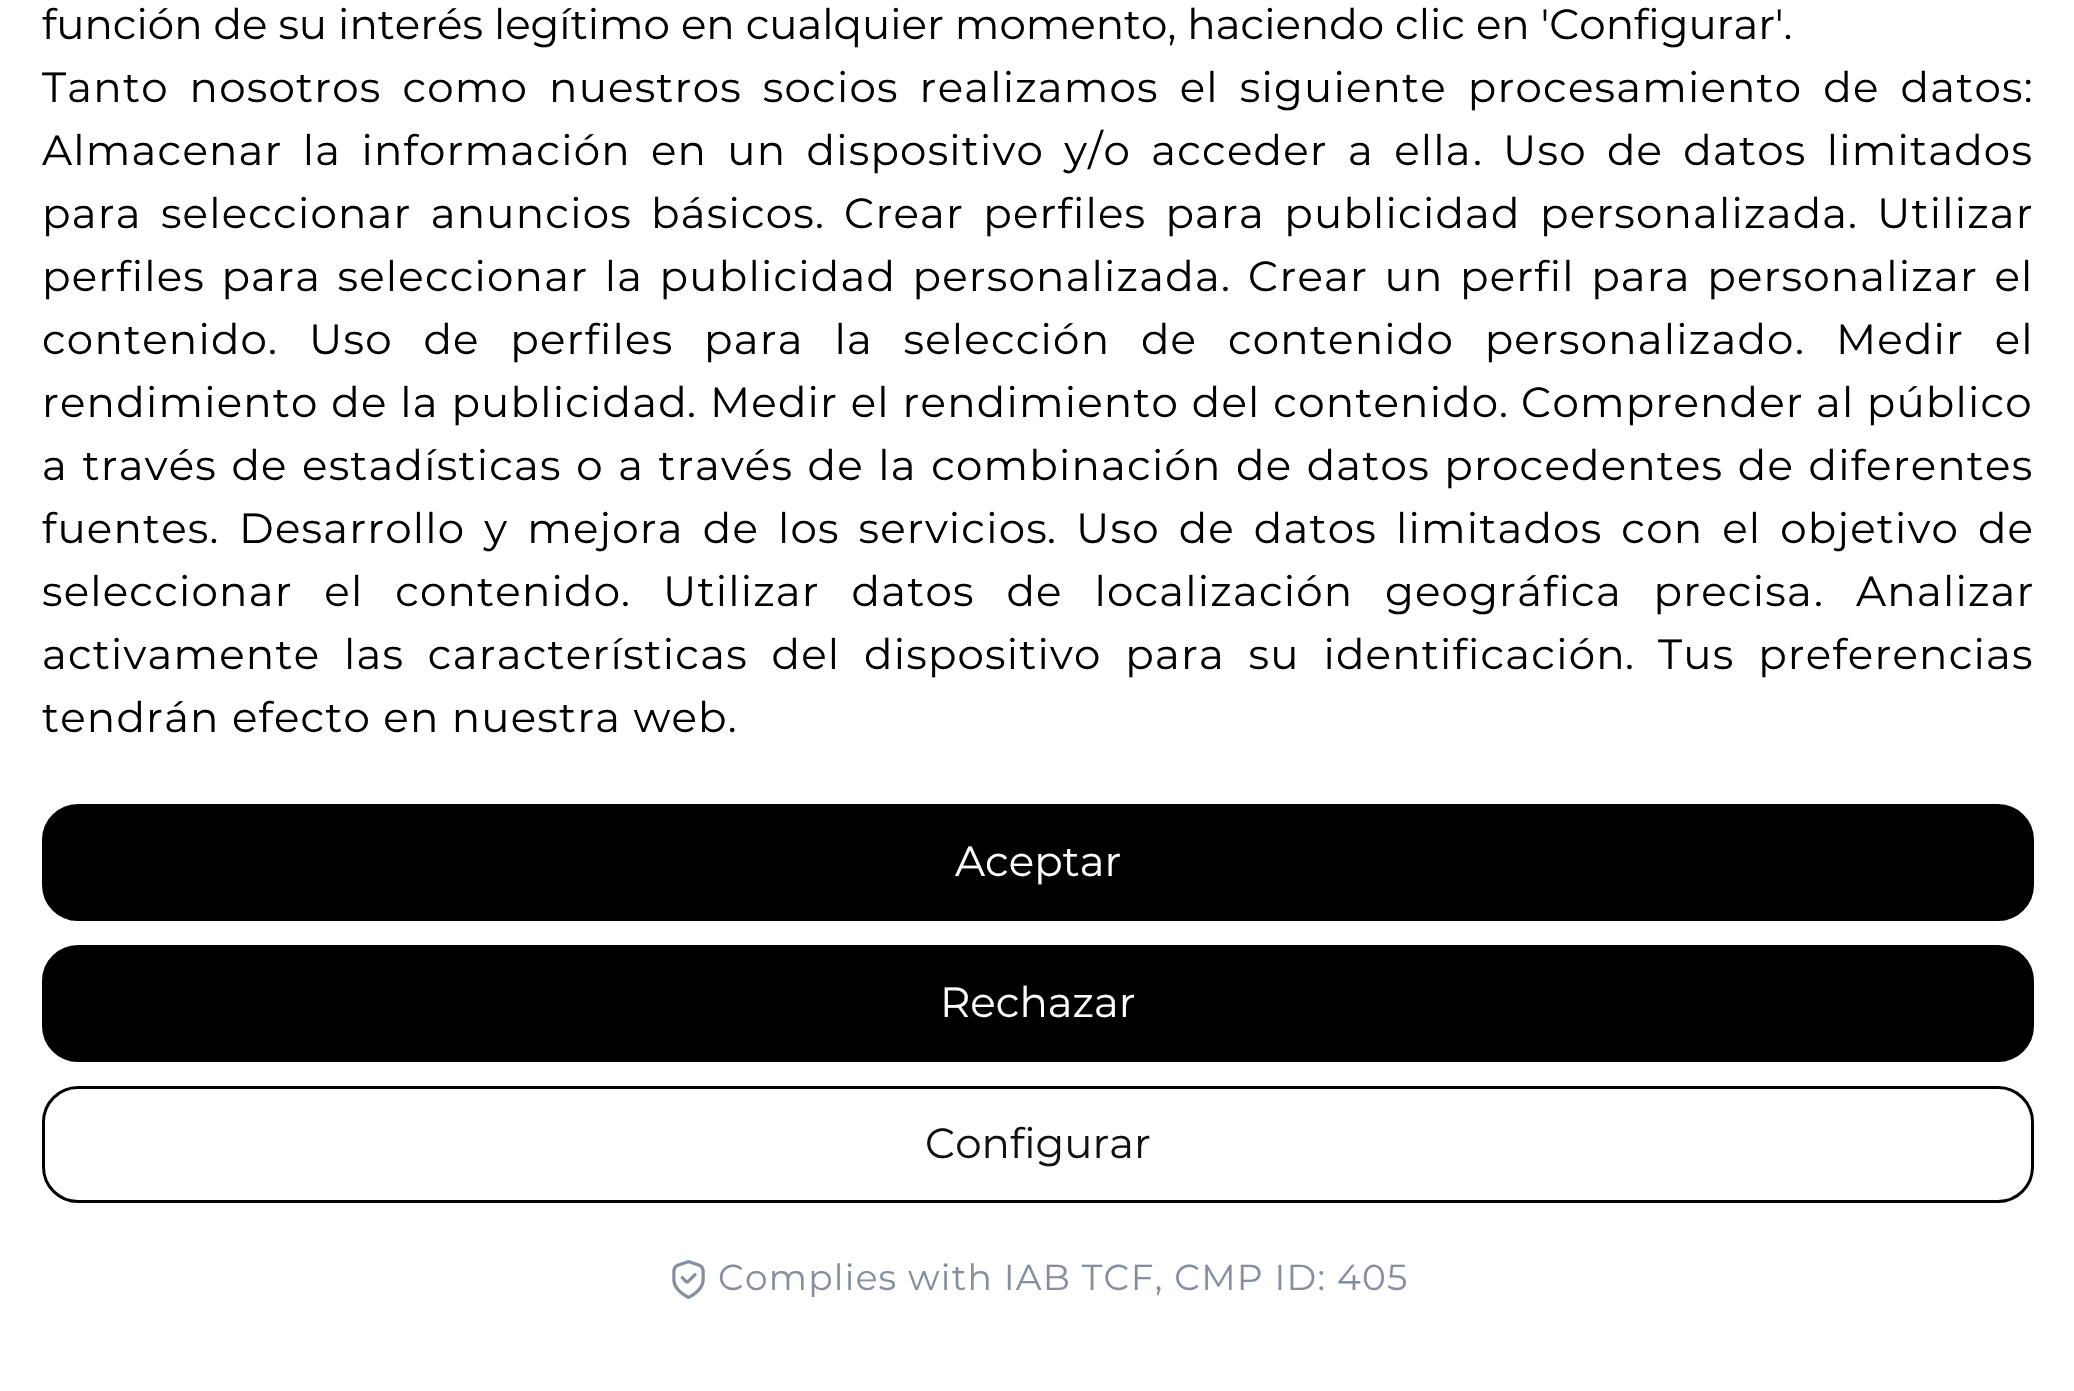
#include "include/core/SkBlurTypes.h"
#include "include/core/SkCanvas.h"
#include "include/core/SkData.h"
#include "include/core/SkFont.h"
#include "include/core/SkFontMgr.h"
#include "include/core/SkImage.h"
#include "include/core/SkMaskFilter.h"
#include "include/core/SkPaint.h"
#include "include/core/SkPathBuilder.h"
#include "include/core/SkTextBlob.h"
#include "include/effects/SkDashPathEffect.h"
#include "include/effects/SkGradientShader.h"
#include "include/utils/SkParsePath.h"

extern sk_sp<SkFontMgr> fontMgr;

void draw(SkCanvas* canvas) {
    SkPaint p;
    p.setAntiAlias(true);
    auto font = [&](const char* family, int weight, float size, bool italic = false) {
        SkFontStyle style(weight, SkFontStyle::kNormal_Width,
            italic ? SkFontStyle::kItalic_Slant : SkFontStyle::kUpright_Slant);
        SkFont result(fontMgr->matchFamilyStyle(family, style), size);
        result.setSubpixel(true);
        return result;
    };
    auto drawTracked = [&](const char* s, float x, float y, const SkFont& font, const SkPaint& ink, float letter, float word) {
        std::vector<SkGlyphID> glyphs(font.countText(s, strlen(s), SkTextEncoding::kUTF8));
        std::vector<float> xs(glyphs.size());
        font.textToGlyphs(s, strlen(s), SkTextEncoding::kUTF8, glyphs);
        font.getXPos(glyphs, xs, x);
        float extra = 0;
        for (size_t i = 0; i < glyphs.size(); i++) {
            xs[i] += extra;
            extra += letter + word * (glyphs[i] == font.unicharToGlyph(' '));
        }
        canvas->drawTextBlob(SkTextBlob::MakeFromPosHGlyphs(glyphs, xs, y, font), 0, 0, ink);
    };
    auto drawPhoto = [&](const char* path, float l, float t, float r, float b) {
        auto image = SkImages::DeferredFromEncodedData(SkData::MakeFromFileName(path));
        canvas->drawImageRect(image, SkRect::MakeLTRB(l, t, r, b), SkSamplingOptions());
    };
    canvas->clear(0xFFFFFFFF);
    auto font1 = font("Montserrat", 400, 42);
    p.setColor(0xFF000000);
    canvas->drawString("función de su interés legítimo en cualquier momento, haciendo clic en 'Configurar'.", 42, 39, font1, p);
    drawTracked("Tanto nosotros como nuestros socios realizamos el siguiente procesamiento de datos:", 42, 102, font1, p, 1.2f, 8.75f);
    drawTracked("Almacenar la información en un dispositivo y/o acceder a ella", 42, 165, font1, p, 1.2f, 8);
    drawTracked(".", 1473, 165, font1, p, 1.2f, 0);
    drawTracked("Uso de datos limitados", 1503, 165, font1, p, 1.2f, 8);
    drawTracked("para seleccionar anuncios básicos", 42, 228, font1, p, 1.2f, 7);
    drawTracked(".", 815, 228, font1, p, 1.2f, 0);
    drawTracked("Crear perfiles para publicidad personalizada", 844, 228, font1, p, 1.2f, 7);
    drawTracked(".", 1848, 228, font1, p, 1.2f, 0);
    drawTracked("Utilizar", 1877, 228, font1, p, 1.2f, 0);
    drawTracked("perfiles para seleccionar la publicidad personalizada", 42, 291, font1, p, 1.2f, 4.25f);
    drawTracked(".", 1221, 291, font1, p, 1.2f, 0);
    drawTracked("Crear un perfil para personalizar el", 1248, 291, font1, p, 1.2f, 4.25f);
    drawTracked("contenido.", 42, 354, font1, p, 1.2f, 0);
    drawTracked("Uso de perfiles para la selección de contenido personalizado", 309, 354, font1, p, 1.2f, 18.5f);
    drawTracked(".", 1795, 354, font1, p, 1.2f, 0);
    drawTracked("Medir el", 1836, 354, font1, p, 1.2f, 18.5f);
    drawTracked("rendimiento de la publicidad", 42, 417, font1, p, 1.2f, 0.5f);
    drawTracked(".", 687, 417, font1, p, 1.2f, 0);
    drawTracked("Medir el rendimiento del contenido", 710, 417, font1, p, 1.2f, 0.5f);
    drawTracked(".", 1499, 417, font1, p, 1.2f, 0);
    drawTracked("Comprender al público", 1521, 417, font1, p, 1.2f, 0);
    drawTracked("a través de estadísticas o a través de la combinación de datos procedentes de diferentes", 42, 480, font1, p, 1.2f, 2.25f);
    drawTracked("fuentes.", 42, 543, font1, p, 1.2f, 0);
    drawTracked("Desarrollo y mejora de los servicios", 239, 543, font1, p, 1.2f, 6.75f);
    drawTracked(".", 1047, 543, font1, p, 1.2f, 0);
    drawTracked("Uso de datos limitados con el objetivo de", 1076, 543, font1, p, 1.2f, 6.75f);
    drawTracked("seleccionar el contenido", 42, 606, font1, p, 1.2f, 19.5f);
    drawTracked(".", 621, 606, font1, p, 1.2f, 0);
    drawTracked("Utilizar datos de localización geográfica precisa", 663, 606, font1, p, 1.2f, 19.5f);
    drawTracked(".", 1814, 606, font1, p, 1.2f, 0);
    drawTracked("Analizar", 1856, 606, font1, p, 1.2f, 0);
    drawTracked("activamente las características del dispositivo para su identificación", 42, 669, font1, p, 1.2f, 11.5f);
    drawTracked(".", 1625, 669, font1, p, 1.2f, 0);
    drawTracked("Tus preferencias", 1658, 669, font1, p, 1.2f, 11.5f);
    drawTracked("tendrán efecto en nuestra web.", 42, 732, font1, p, 1.2f, 0);
    canvas->drawRoundRect(SkRect::MakeLTRB(43.5f, 805.5f, 2032.5f, 919.5f), 34.5f, 34.5f, p);
    p.setStyle(SkPaint::kStroke_Style);
    p.setStrokeWidth(3);
    canvas->drawRoundRect(SkRect::MakeLTRB(43.5f, 805.5f, 2032.5f, 919.5f), 34.5f, 34.5f, p);
    p.setStyle(SkPaint::kFill_Style);
    p.setColor(0xFFFFFFFF);
    canvas->drawString("Aceptar", 955, 876, font1, p);
    p.setColor(0xFF000000);
    canvas->drawRoundRect(SkRect::MakeLTRB(43.5f, 946.5f, 2032.5f, 1060.5f), 34.5f, 34.5f, p);
    p.setStyle(SkPaint::kStroke_Style);
    canvas->drawRoundRect(SkRect::MakeLTRB(43.5f, 946.5f, 2032.5f, 1060.5f), 34.5f, 34.5f, p);
    p.setStyle(SkPaint::kFill_Style);
    p.setColor(0xFFFFFFFF);
    canvas->drawString("Rechazar", 940, 1017, font1, p);
    p.setStyle(SkPaint::kStroke_Style);
    p.setColor(0xFF000000);
    canvas->drawRoundRect(SkRect::MakeLTRB(43.5f, 1087.5f, 2032.5f, 1201.5f), 34.5f, 34.5f, p);
    p.setStyle(SkPaint::kFill_Style);
    p.setColor(0xFF111111);
    canvas->drawString("Configurar", 925, 1158, font1, p);
    drawPhoto("media/1.png", 672, 1260, 705, 1299);
    auto font2 = font("Montserrat", 400, 36);
    p.setColor(0xFF858FA0);
    drawTracked("Complies with IAB TCF, CMP ID: 405", 718, 1290, font2, p, 1.2f, 0);
}
